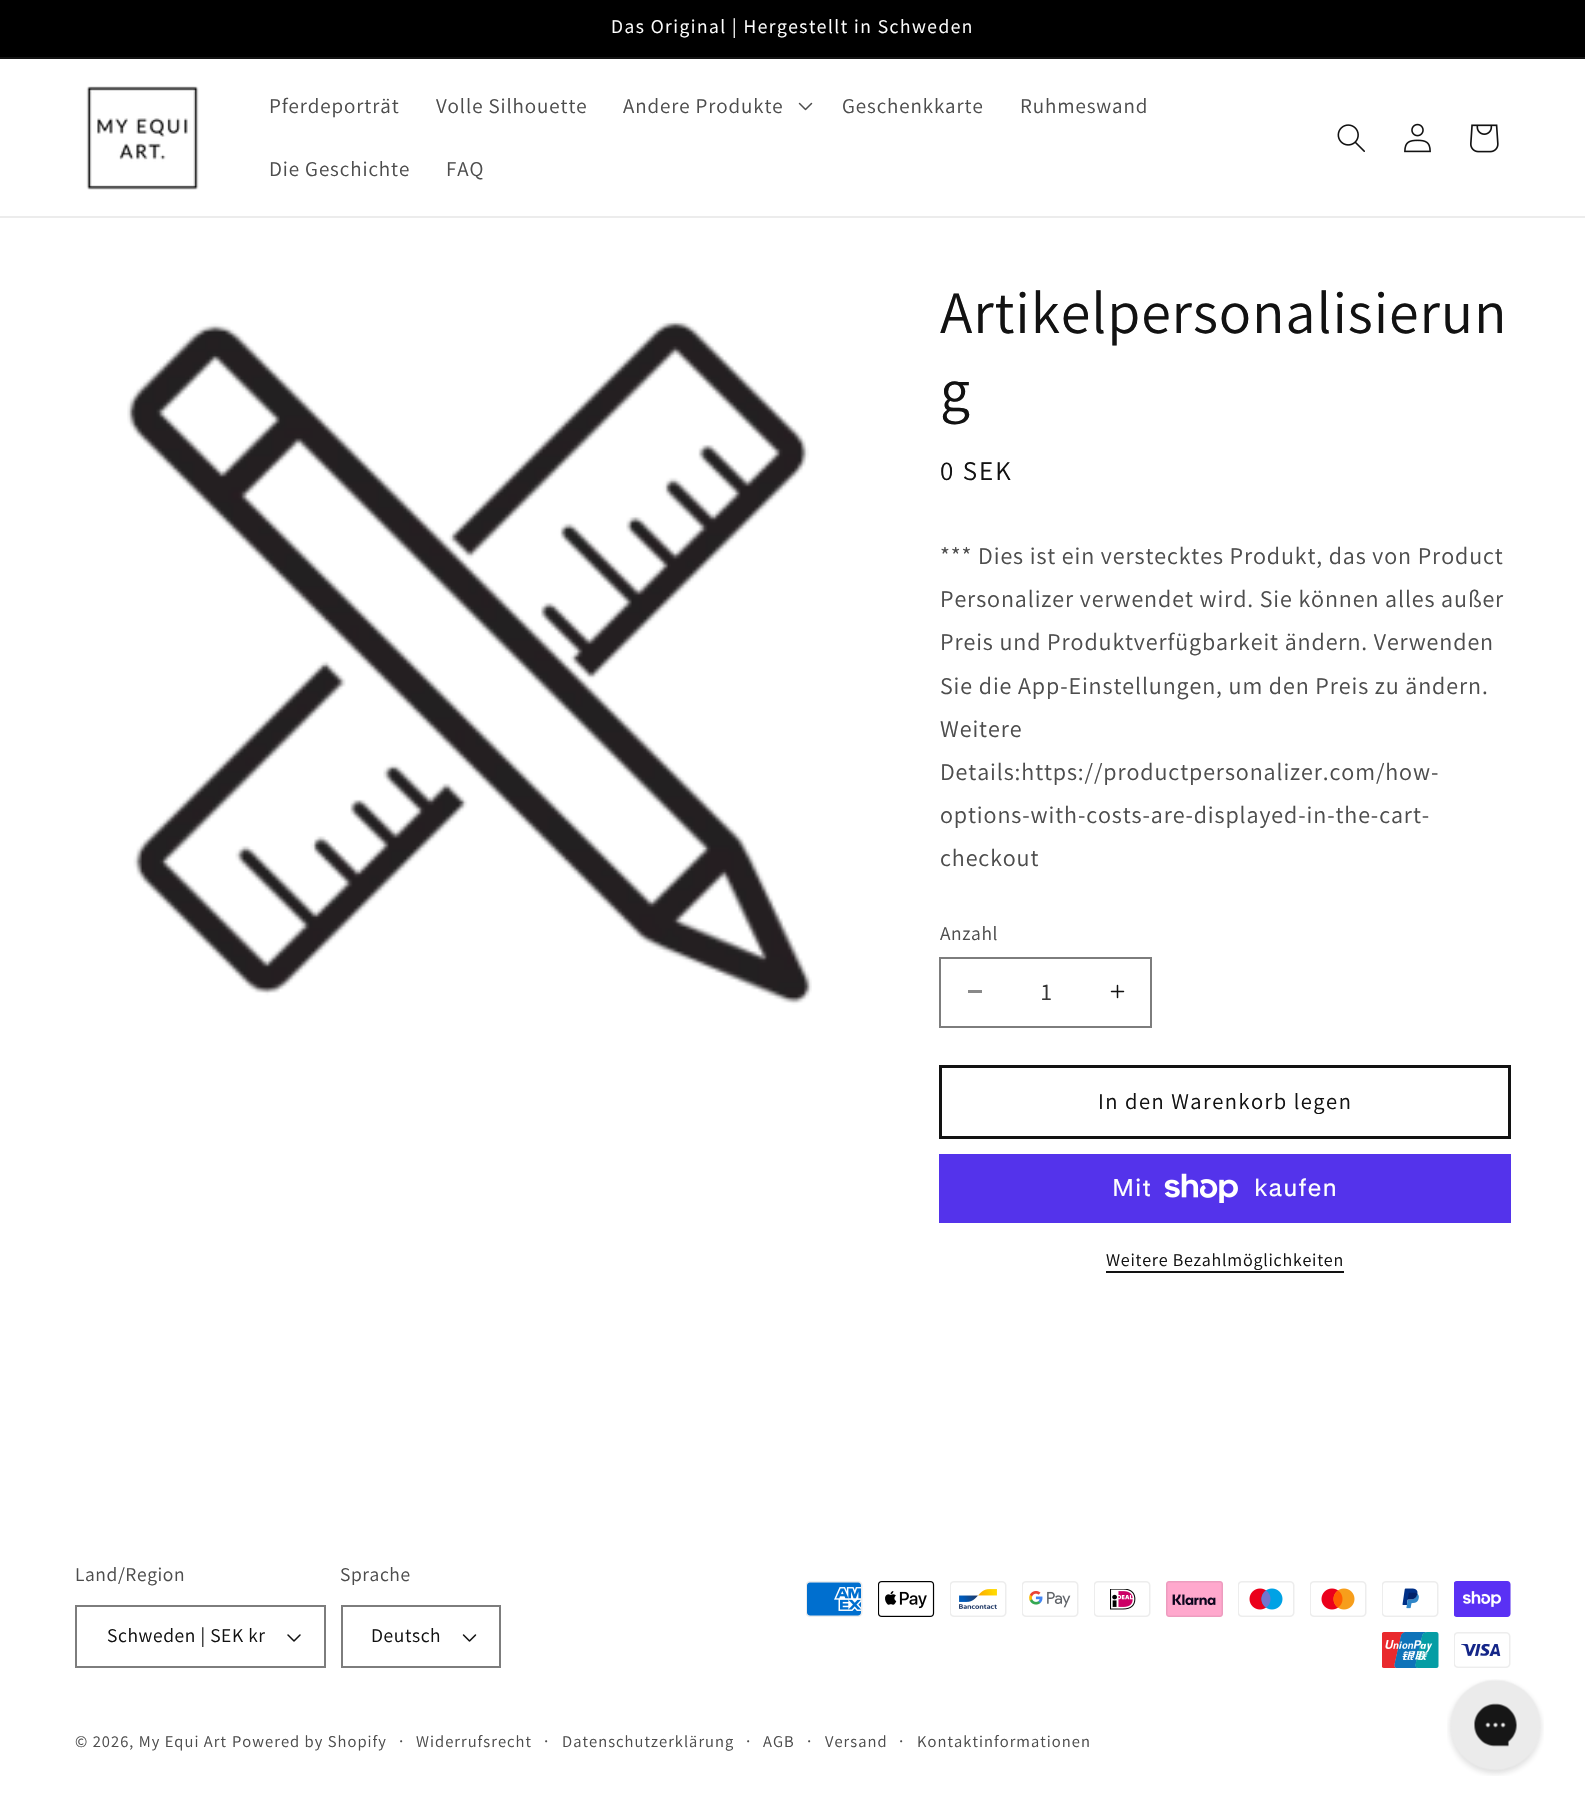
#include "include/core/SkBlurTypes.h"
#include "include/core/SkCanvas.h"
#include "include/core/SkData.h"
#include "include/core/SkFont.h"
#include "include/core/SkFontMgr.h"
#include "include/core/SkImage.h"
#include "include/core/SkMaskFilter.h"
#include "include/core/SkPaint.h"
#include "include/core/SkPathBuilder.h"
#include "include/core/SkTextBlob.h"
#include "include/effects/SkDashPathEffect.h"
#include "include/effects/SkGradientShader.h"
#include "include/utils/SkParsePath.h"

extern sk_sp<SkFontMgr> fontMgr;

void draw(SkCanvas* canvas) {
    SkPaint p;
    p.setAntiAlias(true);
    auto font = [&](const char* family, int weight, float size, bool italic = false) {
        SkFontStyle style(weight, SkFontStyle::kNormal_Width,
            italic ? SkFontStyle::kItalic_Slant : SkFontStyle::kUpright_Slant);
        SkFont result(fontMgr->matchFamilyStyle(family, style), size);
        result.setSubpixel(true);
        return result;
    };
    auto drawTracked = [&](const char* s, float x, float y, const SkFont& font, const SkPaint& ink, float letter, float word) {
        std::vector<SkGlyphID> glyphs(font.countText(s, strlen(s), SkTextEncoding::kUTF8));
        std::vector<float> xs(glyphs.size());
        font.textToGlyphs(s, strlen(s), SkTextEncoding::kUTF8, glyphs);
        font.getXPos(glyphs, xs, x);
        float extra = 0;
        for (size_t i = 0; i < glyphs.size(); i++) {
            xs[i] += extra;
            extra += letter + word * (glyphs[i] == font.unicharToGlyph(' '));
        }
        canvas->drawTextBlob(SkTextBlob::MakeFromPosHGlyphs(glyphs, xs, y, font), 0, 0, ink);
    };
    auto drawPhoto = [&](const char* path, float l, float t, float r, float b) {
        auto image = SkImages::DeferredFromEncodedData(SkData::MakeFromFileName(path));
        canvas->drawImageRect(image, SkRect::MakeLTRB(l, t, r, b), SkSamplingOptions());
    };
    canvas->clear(0xFFFFFFFF);
    p.setColor(0xFF000000);
    canvas->drawRect(SkRect::MakeLTRB(0, 0, 1585, 57), p);
    p.setColor(0xFF141414);
    canvas->drawRect(SkRect::MakeLTRB(0, 57, 1585, 59), p);
    auto font1 = font("Assistant", 400, 19.5f);
    p.setColor(0xFFFFFFFF);
    drawTracked("Das Original | Hergestellt in Schweden", 611, 33, font1, p, 1.5f, 0);
    p.setColor(0xFFECECEC);
    canvas->drawRect(SkRect::MakeLTRB(0, 216, 1585, 218), p);
    drawPhoto("media/1.png", 86, 86, 199, 190);
    auto font2 = font("Assistant", 400, 21);
    p.setColor(0xFF4D4D4D);
    {
        const struct { const char* s; float x, y; } items[] = {
            {"Pferdeporträt", 269, 113},
            {"Volle Silhouette", 436, 113},
            {"Andere Produkte", 623, 113},
        };
        for (auto [s, x, y] : items) {
            drawTracked(s, x, y, font2, p, 0.9f, 0);
        }
    }
    drawPhoto("media/2.png", 798, 102, 813, 111);
    {
        const struct { const char* s; float x, y; } items[] = {
            {"Geschenkkarte", 842, 113},
            {"Ruhmeswand", 1020, 113},
            {"Die Geschichte", 269, 176},
            {"FAQ", 446, 176},
        };
        for (auto [s, x, y] : items) {
            drawTracked(s, x, y, font2, p, 0.9f, 0);
        }
    }
    drawPhoto("media/3.png", 1337, 124, 1365, 152);
    drawPhoto("media/4.png", 1404, 123, 1431, 153);
    drawPhoto("media/5.png", 1470, 124, 1499, 153);
    drawPhoto("media/6.png", 127, 320, 812, 1005);
    auto font3 = font("Assistant", 400, 60);
    p.setColor(0xFF121212);
    drawTracked("Artikelpersonalisierun", 940, 333, font3, p, 0.9f, 0);
    drawTracked("g", 940, 411, font3, p, 0.9f, 0);
    auto font4 = font("Assistant", 400, 27);
    drawTracked("0 SEK", 940, 480, font4, p, 2, 0);
    auto font5 = font("Assistant", 400, 24);
    p.setColor(0xFF4D4D4D);
    {
        const struct { const char* s; float x, y; } items[] = {
            {"*** Dies ist ein verstecktes Produkt, das von Product", 940, 564},
            {"Personalizer verwendet wird. Sie können alles außer", 940, 607},
            {"Preis und Produktverfügbarkeit ändern. Verwenden", 940, 650},
            {"Sie die App-Einstellungen, um den Preis zu ändern.", 940, 694},
            {"Weitere", 940, 737},
            {"Details:https://productpersonalizer.com/how-", 940, 780},
            {"options-with-costs-are-displayed-in-the-cart-", 940, 823},
            {"checkout", 940, 866},
        };
        for (auto [s, x, y] : items) {
            drawTracked(s, x, y, font5, p, 0.9f, 0);
        }
    }
    drawTracked("Anzahl", 940, 940, font1, p, 0.6f, 0);
    p.setColor(0xFF898989);
    canvas->drawRect(SkRect::MakeLTRB(968, 990, 982, 993), p);
    drawPhoto("media/7.png", 1110, 984, 1125, 999);
    p.setStyle(SkPaint::kStroke_Style);
    p.setStrokeWidth(2);
    p.setColor(0xFF7D7D7D);
    canvas->drawRect(SkRect::MakeLTRB(940, 958, 1151, 1027), p);
    p.setStyle(SkPaint::kFill_Style);
    p.setColor(0xFF363636);
    canvas->drawString("1", 1041, 1000, font5, p);
    p.setStyle(SkPaint::kStroke_Style);
    p.setStrokeWidth(3);
    p.setColor(0xFF121212);
    canvas->drawRect(SkRect::MakeLTRB(940.5f, 1066.5f, 1509.5f, 1137.5f), p);
    auto font6 = font("Assistant", 400, 22.5f);
    p.setStyle(SkPaint::kFill_Style);
    drawTracked("In den Warenkorb legen", 1098, 1109, font6, p, 1.5f, 0);
    p.setColor(0xFF5433EB);
    canvas->drawRect(SkRect::MakeLTRB(939, 1154, 1511, 1223), p);
    auto font7 = font("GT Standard", 400, 24);
    p.setColor(0xFFFFFFFF);
    drawTracked("Mit", 1112, 1196, font7, p, 0.9f, 0);
    drawPhoto("media/8.png", 1164, 1173, 1238, 1203);
    drawTracked("kaufen", 1254, 1196, font7, p, 0.9f, 0);
    auto font8 = font("Assistant", 400, 18);
    p.setColor(0xFF121212);
    drawTracked("Weitere Bezahlmöglichkeiten", 1106, 1266, font8, p, 0.75f, 0);
    canvas->drawRect(SkRect::MakeLTRB(1106, 1271, 1344, 1273), p);
    p.setColor(0xFF4D4D4D);
    drawTracked("Land/Region", 75, 1581, font1, p, 0.6f, 0);
    drawPhoto("media/9.png", 287, 1634, 301, 1642);
    p.setStyle(SkPaint::kStroke_Style);
    p.setStrokeWidth(2);
    p.setColor(0xFF7D7D7D);
    canvas->drawRect(SkRect::MakeLTRB(76, 1606, 325, 1667), p);
    p.setStyle(SkPaint::kFill_Style);
    p.setColor(0xFF121212);
    drawTracked("Schweden | SEK kr", 107, 1642, font1, p, 0.6f, 0);
    p.setColor(0xFF4D4D4D);
    drawTracked("Sprache", 340, 1581, font1, p, 0.6f, 0);
    drawPhoto("media/10.png", 462, 1634, 477, 1642);
    p.setStyle(SkPaint::kStroke_Style);
    p.setColor(0xFF7D7D7D);
    canvas->drawRect(SkRect::MakeLTRB(342, 1606, 500, 1667), p);
    p.setStyle(SkPaint::kFill_Style);
    p.setColor(0xFF121212);
    drawTracked("Deutsch", 371, 1642, font1, p, 0.6f, 0);
    drawPhoto("media/11.png", 806, 1581, 863, 1617);
    drawPhoto("media/12.png", 878, 1581, 935, 1617);
    drawPhoto("media/13.png", 950, 1581, 1007, 1617);
    drawPhoto("media/14.png", 1022, 1581, 1079, 1617);
    drawPhoto("media/15.png", 1094, 1581, 1151, 1617);
    drawPhoto("media/16.png", 1166, 1581, 1223, 1617);
    drawPhoto("media/17.png", 1238, 1581, 1295, 1617);
    drawPhoto("media/18.png", 1310, 1581, 1367, 1617);
    drawPhoto("media/19.png", 1382, 1581, 1439, 1617);
    drawPhoto("media/20.png", 1454, 1581, 1511, 1617);
    drawPhoto("media/21.png", 1382, 1632, 1439, 1668);
    drawPhoto("media/22.png", 1454, 1632, 1511, 1668);
    auto font9 = font("Assistant", 400, 16.5f);
    p.setColor(0xFF4D4D4D);
    drawTracked("© 2026, My Equi Art", 75, 1747, font9, p, 1.05f, 0);
    drawTracked("Powered by Shopify", 232, 1747, font9, p, 1.05f, 0);
    drawTracked("·", 399, 1747, font8, p, 1.05f, 0);
    drawTracked("Widerrufsrecht", 416, 1747, font9, p, 1.05f, 0);
    drawTracked("·", 544, 1747, font8, p, 1.05f, 0);
    drawTracked("Datenschutzerklärung", 562, 1747, font9, p, 1.05f, 0);
    drawTracked("·", 746, 1747, font8, p, 1.05f, 0);
    drawTracked("AGB", 763, 1747, font9, p, 1.05f, 0);
    drawTracked("·", 807, 1747, font8, p, 1.05f, 0);
    drawTracked("Versand", 825, 1747, font9, p, 1.05f, 0);
    drawTracked("·", 899, 1747, font8, p, 1.05f, 0);
    drawTracked("Kontaktinformationen", 917, 1747, font9, p, 1.05f, 0);
    drawPhoto("media/23.png", 1447, 1679, 1544, 1776);
}
